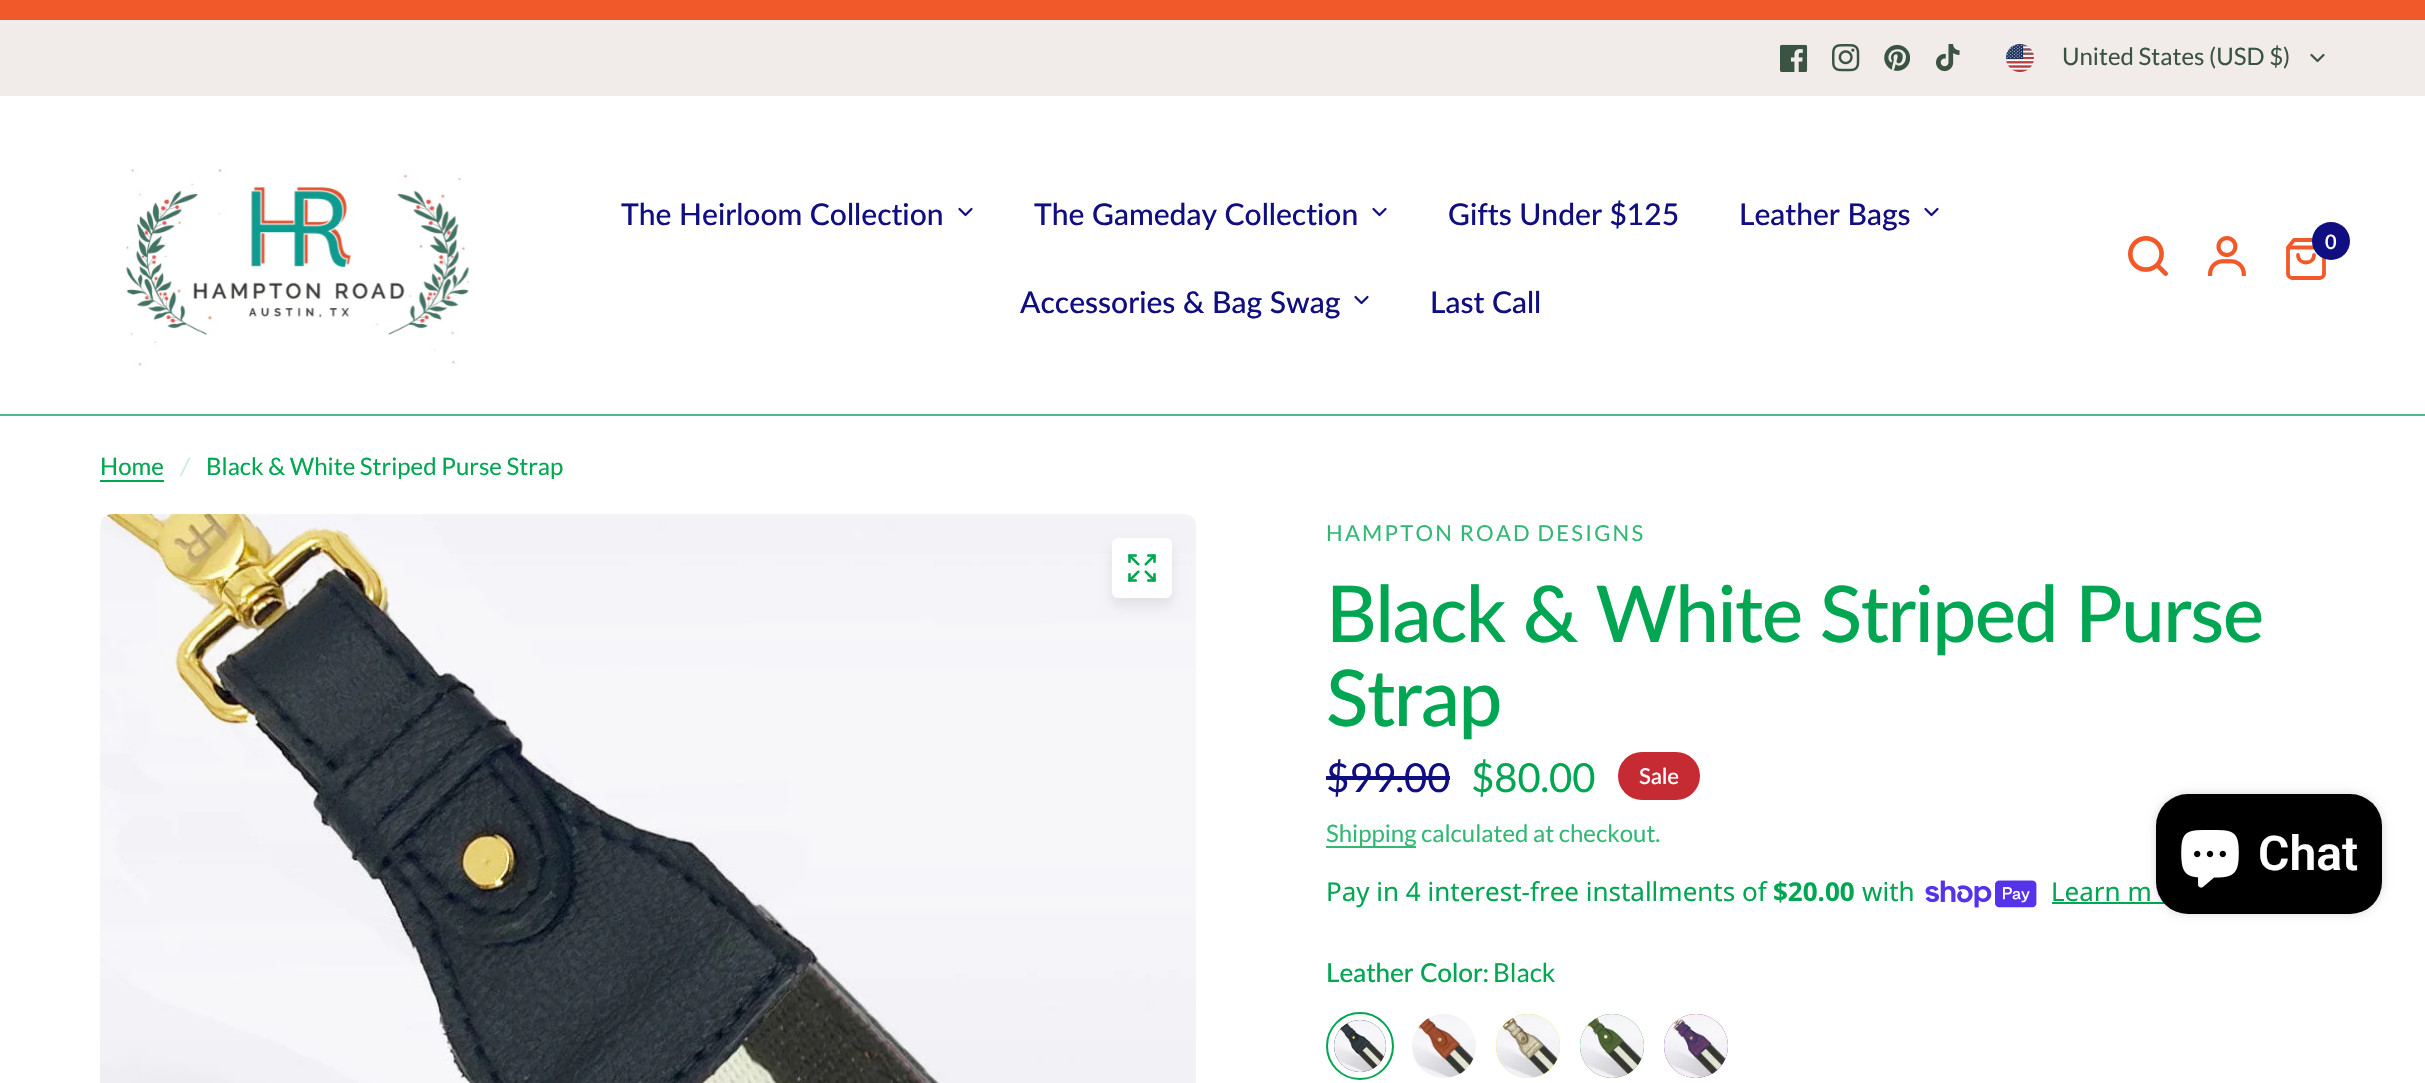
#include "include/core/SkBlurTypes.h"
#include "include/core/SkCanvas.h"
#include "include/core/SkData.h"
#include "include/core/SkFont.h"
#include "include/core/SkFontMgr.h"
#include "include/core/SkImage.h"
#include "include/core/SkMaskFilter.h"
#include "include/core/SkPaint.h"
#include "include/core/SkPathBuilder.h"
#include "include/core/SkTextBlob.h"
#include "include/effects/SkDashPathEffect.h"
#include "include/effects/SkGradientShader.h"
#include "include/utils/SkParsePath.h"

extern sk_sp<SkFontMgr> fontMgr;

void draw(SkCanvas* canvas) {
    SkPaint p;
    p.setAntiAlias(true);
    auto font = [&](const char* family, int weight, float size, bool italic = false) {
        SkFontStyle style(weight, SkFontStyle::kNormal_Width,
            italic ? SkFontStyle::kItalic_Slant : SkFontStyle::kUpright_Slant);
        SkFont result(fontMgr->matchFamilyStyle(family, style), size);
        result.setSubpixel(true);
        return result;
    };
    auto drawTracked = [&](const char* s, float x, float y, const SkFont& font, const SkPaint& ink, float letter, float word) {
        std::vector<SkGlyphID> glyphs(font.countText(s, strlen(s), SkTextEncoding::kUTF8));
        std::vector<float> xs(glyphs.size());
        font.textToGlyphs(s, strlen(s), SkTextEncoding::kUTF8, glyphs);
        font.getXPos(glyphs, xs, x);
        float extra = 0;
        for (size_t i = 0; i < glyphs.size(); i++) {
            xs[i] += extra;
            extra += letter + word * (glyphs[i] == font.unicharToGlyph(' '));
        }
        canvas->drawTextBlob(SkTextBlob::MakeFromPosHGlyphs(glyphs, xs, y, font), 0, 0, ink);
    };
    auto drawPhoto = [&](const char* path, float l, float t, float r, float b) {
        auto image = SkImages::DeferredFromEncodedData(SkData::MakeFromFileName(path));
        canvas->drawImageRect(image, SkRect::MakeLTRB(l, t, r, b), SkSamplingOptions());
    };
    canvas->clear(0xFFFFFFFF);
    p.setColor(0xFFF1592A);
    canvas->drawRect(SkRect::MakeLTRB(0, 0, 2425, 20), p);
    p.setColor(0xFFF1ECE9);
    canvas->drawRect(SkRect::MakeLTRB(0, 20, 2425, 96), p);
    drawPhoto("media/1.png", 1780, 44, 1808, 72);
    drawPhoto("media/2.png", 1832, 44, 1860, 72);
    drawPhoto("media/3.png", 1884, 44, 1910, 71);
    drawPhoto("media/4.png", 1936, 44, 1960, 72);
    drawPhoto("media/5.png", 2006, 44, 2034, 72);
    auto font1 = font("Lato", 400, 24);
    p.setColor(0xFF3B5342);
    canvas->drawString("United States (USD $)", 2062, 65, font1, p);
    p.setStyle(SkPaint::kStroke_Style);
    p.setStrokeWidth(2.2f);
    p.setStrokeCap(SkPaint::kRound_Cap);
    p.setStrokeJoin(SkPaint::kRound_Join);
    canvas->drawPath(SkPathBuilder().moveTo(2323.5f, 55).lineTo(2317.5f, 61).lineTo(2311.5f, 55).detach(), p);
    drawPhoto("media/6.png", 126, 168, 471, 367);
    auto font2 = font("Lato", 500, 30);
    p.setStyle(SkPaint::kFill_Style);
    p.setColor(0xFF100E80);
    canvas->drawString("The Heirloom Collection", 621, 225, font2, p);
    p.setStyle(SkPaint::kStroke_Style);
    canvas->drawPath(SkPathBuilder().moveTo(971.5f, 209).lineTo(965.5f, 215).lineTo(959.5f, 209).detach(), p);
    p.setStyle(SkPaint::kFill_Style);
    canvas->drawString("The Gameday Collection", 1034, 225, font2, p);
    p.setStyle(SkPaint::kStroke_Style);
    canvas->drawPath(SkPathBuilder().moveTo(1385.5f, 209).lineTo(1379.5f, 215).lineTo(1373.5f, 209).detach(), p);
    p.setStyle(SkPaint::kFill_Style);
    canvas->drawString("Gifts Under $125", 1448, 225, font2, p);
    canvas->drawString("Leather Bags", 1739, 225, font2, p);
    p.setStyle(SkPaint::kStroke_Style);
    canvas->drawPath(SkPathBuilder().moveTo(1937.5f, 209).lineTo(1931.5f, 215).lineTo(1925.5f, 209).detach(), p);
    p.setStyle(SkPaint::kFill_Style);
    canvas->drawString("Accessories & Bag Swag", 1020, 313, font2, p);
    p.setStyle(SkPaint::kStroke_Style);
    canvas->drawPath(SkPathBuilder().moveTo(1367.5f, 297).lineTo(1361.5f, 303).lineTo(1355.5f, 297).detach(), p);
    p.setStyle(SkPaint::kFill_Style);
    canvas->drawString("Last Call", 1430, 313, font2, p);
    drawPhoto("media/7.png", 2128, 236, 2168, 276);
    drawPhoto("media/8.png", 2208, 236, 2246, 276);
    p.setStyle(SkPaint::kStroke_Style);
    p.setStrokeWidth(3.8f);
    p.setColor(0xFFF1592A);
    canvas->drawPath(SkPathBuilder().moveTo(2288, 247.5f).lineTo(2294, 240).lineTo(2318, 240).lineTo(2324, 247.5f).moveTo(2288, 247.5f).lineTo(2288, 274).cubicTo(2288, 276, 2290, 278, 2292, 278).lineTo(2320, 278).cubicTo(2322, 278, 2324, 276, 2324, 274).lineTo(2324, 247.5f).moveTo(2288, 247.5f).lineTo(2324, 247.5f).moveTo(2314, 255).cubicTo(2314, 265, 2298, 265, 2298, 255).detach(), p);
    p.setStyle(SkPaint::kFill_Style);
    p.setColor(0xFF100E80);
    canvas->drawCircle(2331, 241, 19, p);
    auto font3 = font("Lato", 600, 20);
    p.setColor(0xFFFFFFFF);
    canvas->drawString("0", 2325, 249, font3, p);
    p.setColor(0xFF4CBB89);
    canvas->drawRect(SkRect::MakeLTRB(0, 414, 2425, 416), p);
    p.setColor(0xFF00A651);
    canvas->drawString("Home", 100, 475, font1, p);
    canvas->drawRect(SkRect::MakeLTRB(100, 480, 164, 482), p);
    auto font4 = font("Lato", 400, 24, true);
    p.setColor(0xFFCCEDDC);
    canvas->drawString("/", 180, 475, font4, p);
    p.setColor(0xFF00A651);
    canvas->drawString("Black & White Striped Purse Strap", 206, 475, font1, p);
    drawPhoto("media/9.png", 100, 514, 1196, 1083);
    p.setColor(0x14000000);
    p.setMaskFilter(SkMaskFilter::MakeBlur(kNormal_SkBlurStyle, 6));
    canvas->drawRoundRect(SkRect::MakeLTRB(1112, 546, 1172, 606), 6, 6, p);
    p.setMaskFilter(nullptr);
    p.setColor(0xFFFFFFFF);
    canvas->drawRoundRect(SkRect::MakeLTRB(1112, 538, 1172, 598), 6, 6, p);
    drawPhoto("media/10.png", 1128, 554, 1156, 582);
    auto font5 = font("Lato", 400, 22);
    p.setColor(0xFF33B874);
    drawTracked("HAMPTON ROAD DESIGNS", 1326, 541, font5, p, 2.25f, -1);
    auto font6 = font("Lato", 500, 78.25f);
    p.setColor(0xFF00A651);
    drawTracked("Black & White Striped Purse", 1326, 642, font6, p, -1.55f, 0);
    drawTracked("Strap", 1326, 726, font6, p, -1.55f, 0);
    auto font7 = font("Lato", 400, 40);
    p.setColor(0xFF100E80);
    canvas->drawString("$99.00", 1326, 792, font7, p);
    canvas->drawRect(SkRect::MakeLTRB(1326, 776, 1450, 780), p);
    p.setColor(0xFF00A651);
    canvas->drawString("$80.00", 1471, 792, font7, p);
    p.setColor(0xFFC62A32);
    canvas->drawRoundRect(SkRect::MakeLTRB(1618, 752, 1700, 800), 24, 24, p);
    auto font8 = font("Lato", 500, 22);
    p.setColor(0xFFFFFFFF);
    canvas->drawString("Sale", 1639, 784, font8, p);
    p.setColor(0xFF33B874);
    canvas->drawRect(SkRect::MakeLTRB(1326, 846, 1416, 848), p);
    canvas->drawString("Shipping calculated at checkout.", 1326, 842, font1, p);
    auto font9 = font("Noto Sans", 400, 26);
    p.setColor(0xFF00A651);
    canvas->drawString("Pay in 4 interest-free installments of", 1326, 901, font9, p);
    auto font10 = font("Noto Sans", 700, 26);
    canvas->drawString("$20.00", 1773, 901, font10, p);
    canvas->drawString("with", 1862, 901, font9, p);
    drawPhoto("media/11.png", 1925, 880, 2037, 908);
    canvas->drawString("Learn m", 2051, 901, font9, p);
    canvas->drawRect(SkRect::MakeLTRB(2052, 902, 2165, 904), p);
    auto font11 = font("Lato", 500, 26);
    canvas->drawString("Leather Color:", 1326, 982, font11, p);
    auto font12 = font("Lato", 400, 26);
    canvas->drawString("Black", 1493, 982, font12, p);
    p.setStyle(SkPaint::kStroke_Style);
    p.setStrokeWidth(2);
    p.setStrokeCap(SkPaint::kButt_Cap);
    p.setStrokeJoin(SkPaint::kMiter_Join);
    canvas->drawCircle(1360, 1046, 33, p);
    p.setStyle(SkPaint::kFill_Style);
    p.setColor(0xFF000000);
    canvas->drawCircle(1360, 1046, 26, p);
    drawPhoto("media/12.png", 1334, 1020, 1386, 1072);
    drawPhoto("media/13.png", 1412, 1014, 1476, 1078);
    p.setColor(0xFFFFD700);
    canvas->drawCircle(1528, 1046, 32, p);
    drawPhoto("media/14.png", 1496, 1014, 1560, 1078);
    p.setColor(0xFF008000);
    canvas->drawCircle(1612, 1046, 32, p);
    drawPhoto("media/15.png", 1580, 1014, 1644, 1078);
    p.setColor(0xFF800080);
    canvas->drawCircle(1696, 1046, 32, p);
    drawPhoto("media/16.png", 1664, 1014, 1728, 1078);
    p.setColor(0x26000000);
    p.setMaskFilter(SkMaskFilter::MakeBlur(kNormal_SkBlurStyle, 5));
    canvas->drawRoundRect(SkRect::MakeLTRB(2156, 794, 2382, 914), 32, 32, p);
    p.setMaskFilter(nullptr);
    p.setColor(0xFF000000);
    canvas->drawRoundRect(SkRect::MakeLTRB(2156, 794, 2382, 914), 32, 32, p);
    drawPhoto("media/17.png", 2181, 830, 2239, 888);
    auto font13 = font("Roboto", 600, 48);
    p.setColor(0xFFFFFFFF);
    canvas->drawString("Chat", 2258, 870, font13, p);
}
